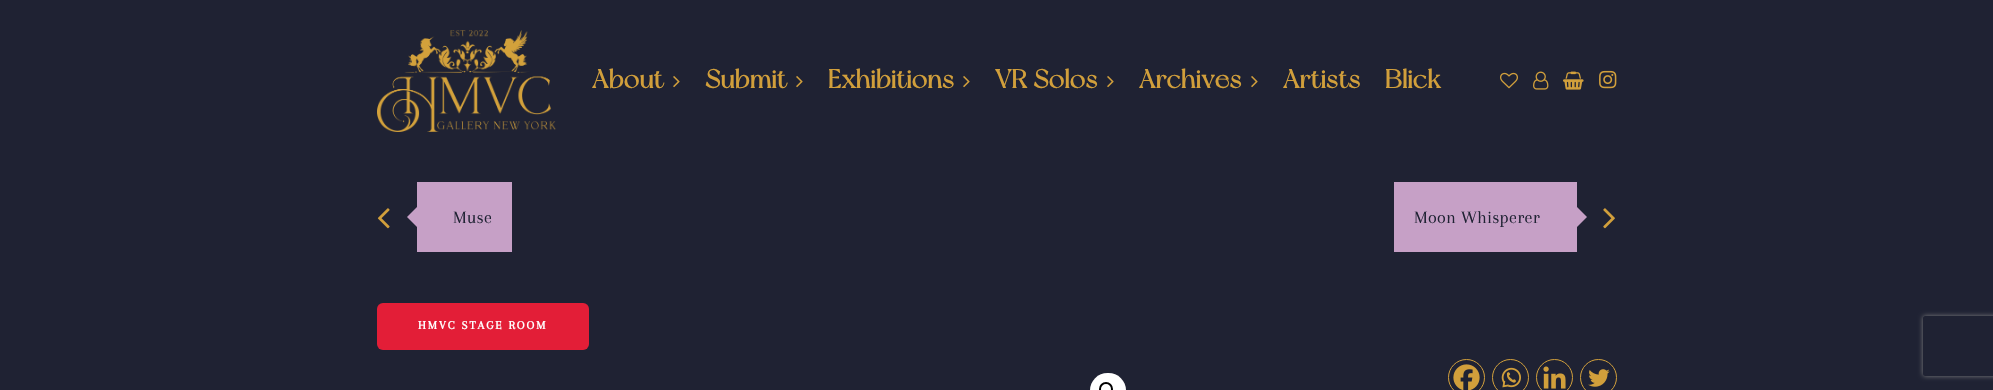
#include "include/core/SkBlurTypes.h"
#include "include/core/SkCanvas.h"
#include "include/core/SkData.h"
#include "include/core/SkFont.h"
#include "include/core/SkFontMgr.h"
#include "include/core/SkImage.h"
#include "include/core/SkMaskFilter.h"
#include "include/core/SkPaint.h"
#include "include/core/SkPathBuilder.h"
#include "include/core/SkTextBlob.h"
#include "include/effects/SkDashPathEffect.h"
#include "include/effects/SkGradientShader.h"
#include "include/utils/SkParsePath.h"

extern sk_sp<SkFontMgr> fontMgr;

void draw(SkCanvas* canvas) {
    SkPaint p;
    p.setAntiAlias(true);
    auto font = [&](const char* family, int weight, float size, bool italic = false) {
        SkFontStyle style(weight, SkFontStyle::kNormal_Width,
            italic ? SkFontStyle::kItalic_Slant : SkFontStyle::kUpright_Slant);
        SkFont result(fontMgr->matchFamilyStyle(family, style), size);
        result.setSubpixel(true);
        return result;
    };
    auto drawTracked = [&](const char* s, float x, float y, const SkFont& font, const SkPaint& ink, float letter, float word) {
        std::vector<SkGlyphID> glyphs(font.countText(s, strlen(s), SkTextEncoding::kUTF8));
        std::vector<float> xs(glyphs.size());
        font.textToGlyphs(s, strlen(s), SkTextEncoding::kUTF8, glyphs);
        font.getXPos(glyphs, xs, x);
        float extra = 0;
        for (size_t i = 0; i < glyphs.size(); i++) {
            xs[i] += extra;
            extra += letter + word * (glyphs[i] == font.unicharToGlyph(' '));
        }
        canvas->drawTextBlob(SkTextBlob::MakeFromPosHGlyphs(glyphs, xs, y, font), 0, 0, ink);
    };
    auto drawPhoto = [&](const char* path, float l, float t, float r, float b) {
        auto image = SkImages::DeferredFromEncodedData(SkData::MakeFromFileName(path));
        canvas->drawImageRect(image, SkRect::MakeLTRB(l, t, r, b), SkSamplingOptions());
    };
    canvas->clear(0xFF1F2233);
    drawPhoto("media/1.png", 377, 30, 556, 132);
    auto font1 = font("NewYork", 700, 26);
    p.setColor(0xFFD19F3B);
    drawTracked("About", 592, 88, font1, p, 0.3f, 0);
    drawPhoto("media/2.png", 673, 76, 680, 88);
    drawTracked("Submit", 705, 88, font1, p, 0.3f, 0);
    drawPhoto("media/2.png", 796, 76, 803, 88);
    drawTracked("Exhibitions", 828, 88, font1, p, 0.3f, 0);
    drawPhoto("media/2.png", 963, 76, 970, 88);
    drawTracked("VR Solos", 995, 88, font1, p, 0.3f, 0);
    drawPhoto("media/2.png", 1107, 76, 1114, 88);
    drawTracked("Archives", 1139, 88, font1, p, 0.3f, 0);
    drawPhoto("media/2.png", 1251, 76, 1258, 88);
    drawTracked("Artists", 1283, 88, font1, p, 0.3f, 0);
    drawTracked("Blick", 1385, 88, font1, p, 0.3f, 0);
    drawPhoto("media/3.png", 1500, 72, 1518, 89);
    drawPhoto("media/4.png", 1533, 71, 1549, 90);
    drawPhoto("media/5.png", 1563, 71, 1584, 90);
    drawPhoto("media/6.png", 1599, 70, 1617, 89);
    p.setColor(0xFFC6A0C6);
    canvas->drawRect(SkRect::MakeLTRB(417, 182, 512, 252), p);
    drawPhoto("media/7.png", 377, 208, 390, 229);
    canvas->drawPath(SkPathBuilder().moveTo(417, 207).lineTo(417, 227).lineTo(407, 217).close().detach(), p);
    auto font2 = font("Arapey", 400, 18);
    p.setColor(0xFF1F2233);
    drawTracked("Muse", 453, 223, font2, p, 0.3f, 0);
    p.setColor(0xFFC6A0C6);
    canvas->drawRect(SkRect::MakeLTRB(1394, 182, 1577, 252), p);
    p.setColor(0xFF1F2233);
    drawTracked("Moon Whisperer", 1414, 223, font2, p, 0.3f, 0);
    p.setColor(0xFFC6A0C6);
    canvas->drawPath(SkPathBuilder().moveTo(1577, 227).lineTo(1577, 207).lineTo(1587, 217).close().detach(), p);
    drawPhoto("media/8.png", 1603, 208, 1615, 229);
    p.setColor(0xFFE31E37);
    canvas->drawRoundRect(SkRect::MakeLTRB(377, 303, 589, 350), 6, 6, p);
    auto font3 = font("Arapey", 700, 12);
    p.setColor(0xFFFFFFFF);
    drawTracked("HMVC STAGE ROOM", 418, 329, font3, p, 2, 0);
    canvas->drawRoundRect(SkRect::MakeLTRB(1090, 373, 1126, 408), 18, 18, p);
    p.setStyle(SkPaint::kStroke_Style);
    p.setStrokeWidth(2);
    p.setColor(0xFF000000);
    canvas->drawCircle(1106, 389, 6, p);
    p.setStrokeWidth(1);
    p.setColor(0xFFD19F3B);
    canvas->drawCircle(1466.5f, 377.5f, 18, p);
    drawPhoto("media/9.png", 1453, 364, 1480, 390);
    canvas->drawCircle(1510.5f, 377.5f, 18, p);
    drawPhoto("media/10.png", 1501, 367, 1521, 388);
    canvas->drawCircle(1554.5f, 377.5f, 18, p);
    drawPhoto("media/11.png", 1543, 366, 1566, 389);
    canvas->drawCircle(1598.5f, 377.5f, 18, p);
    drawPhoto("media/12.png", 1588, 369, 1610, 387);
    canvas->save();
    canvas->clipPath(SkPathBuilder(SkPathFillType::kEvenOdd).moveTo(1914, 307).lineTo(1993, 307).lineTo(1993, 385).lineTo(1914, 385).close().moveTo(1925, 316).lineTo(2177, 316).cubicTo(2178, 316, 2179, 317, 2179, 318).lineTo(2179, 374).cubicTo(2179, 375, 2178, 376, 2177, 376).lineTo(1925, 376).cubicTo(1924, 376, 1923, 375, 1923, 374).lineTo(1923, 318).cubicTo(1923, 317, 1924, 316, 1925, 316).close().detach(), true);
    p.setStyle(SkPaint::kFill_Style);
    p.setColor(0xFF808080);
    p.setMaskFilter(SkMaskFilter::MakeBlur(kNormal_SkBlurStyle, 2.5f));
    canvas->drawRoundRect(SkRect::MakeLTRB(1923, 316, 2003, 376), 2, 2, p);
    p.setMaskFilter(nullptr);
    canvas->restore();
}
